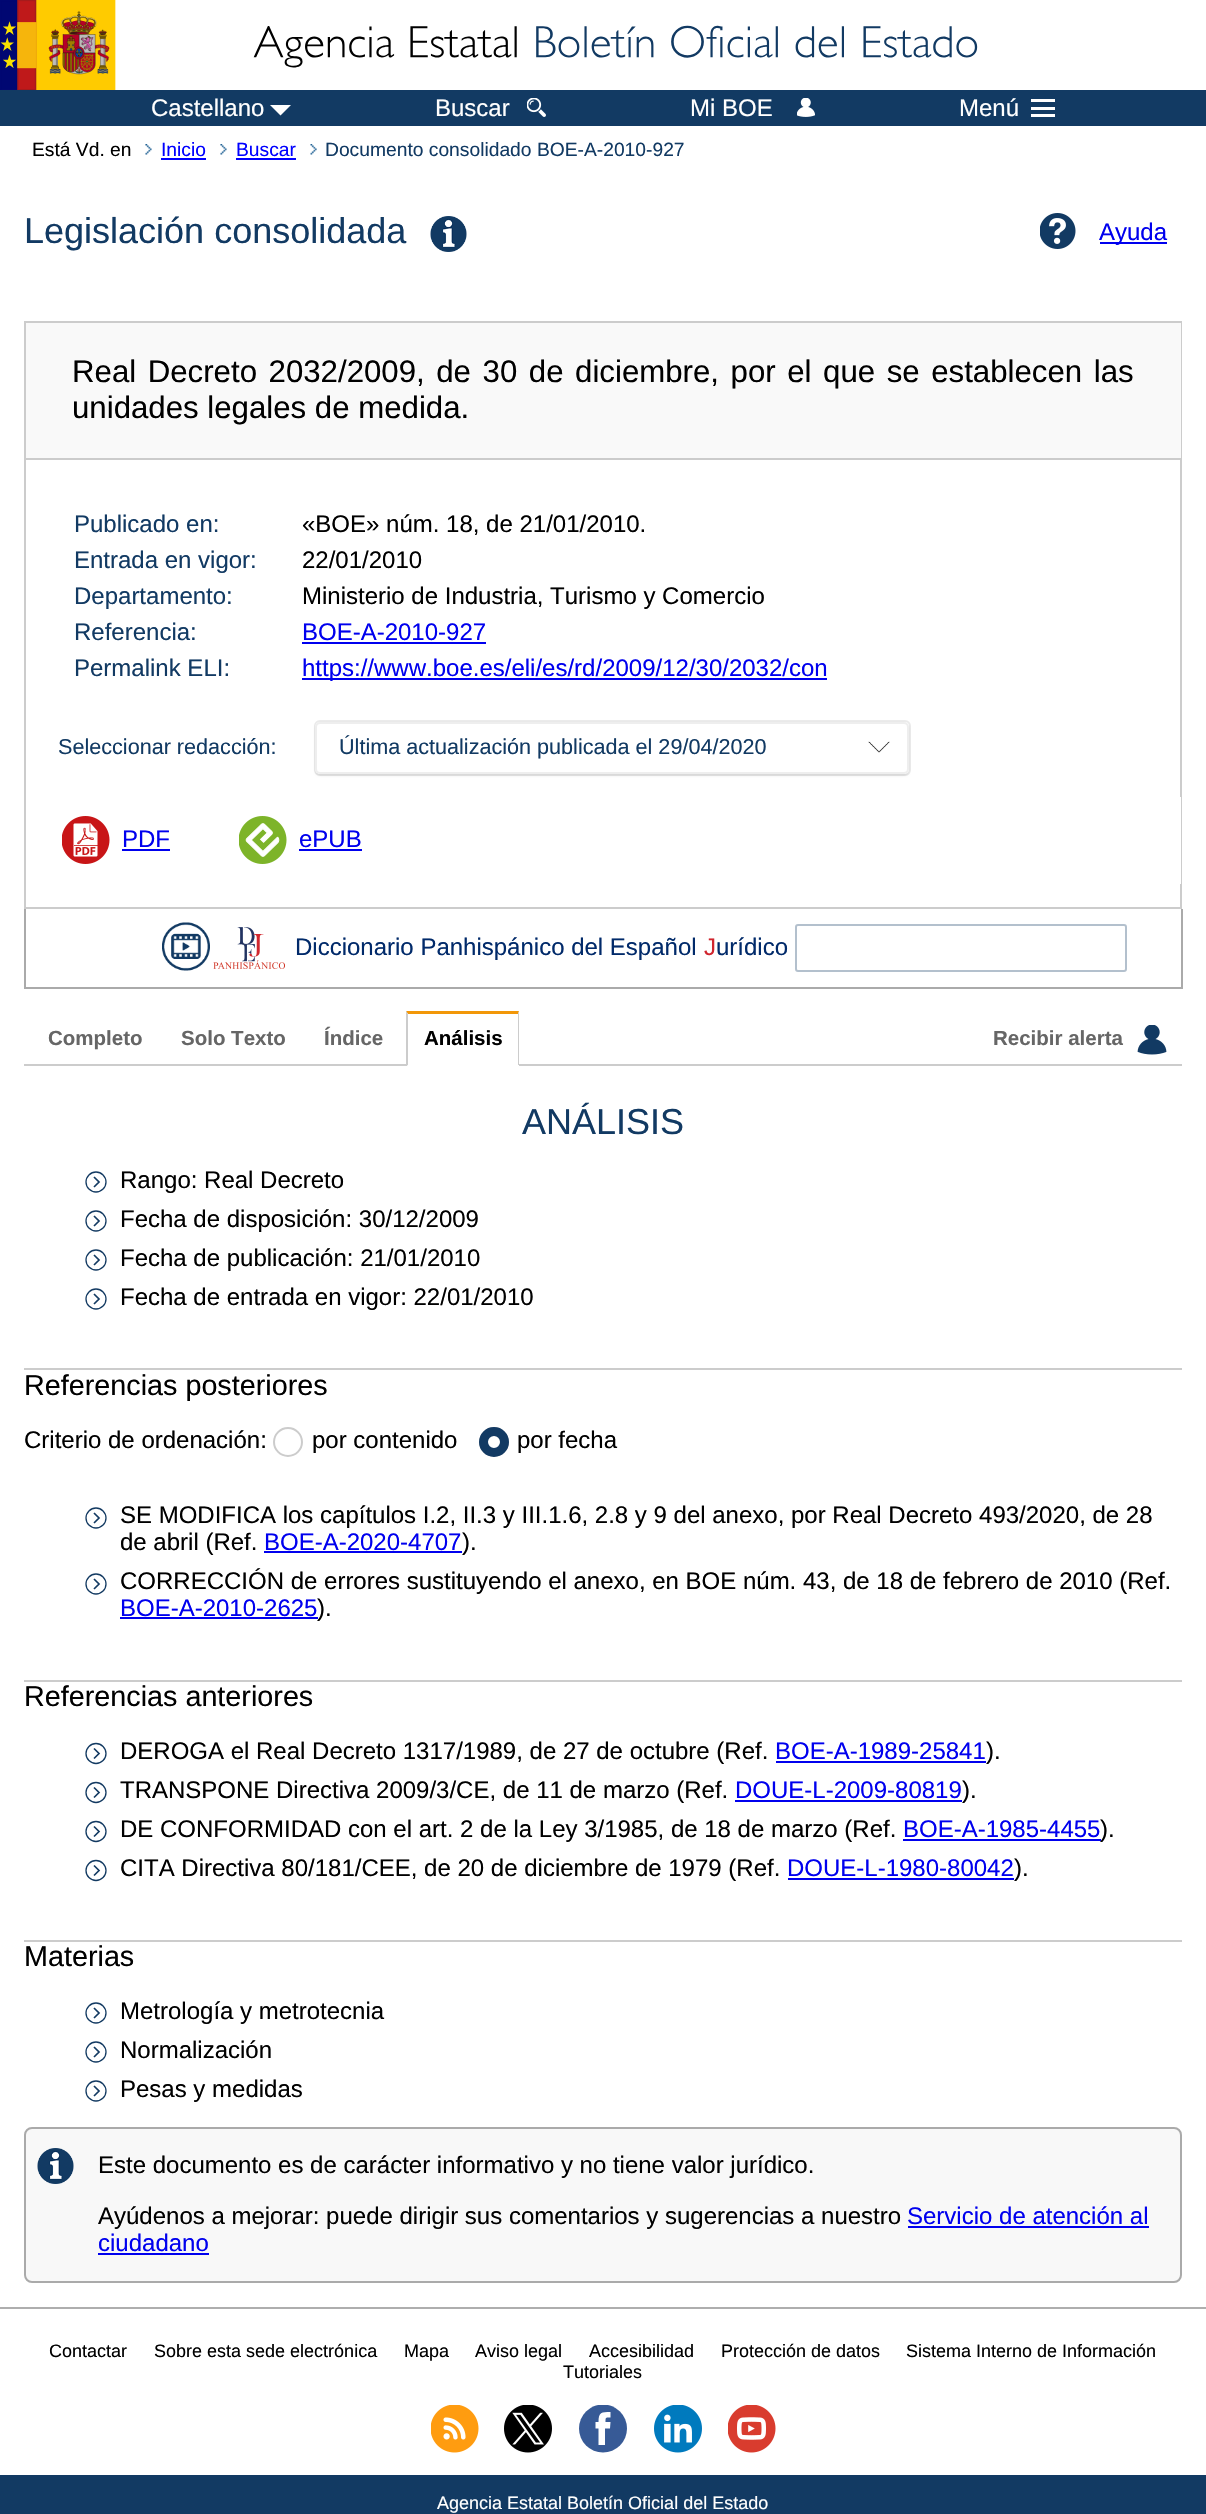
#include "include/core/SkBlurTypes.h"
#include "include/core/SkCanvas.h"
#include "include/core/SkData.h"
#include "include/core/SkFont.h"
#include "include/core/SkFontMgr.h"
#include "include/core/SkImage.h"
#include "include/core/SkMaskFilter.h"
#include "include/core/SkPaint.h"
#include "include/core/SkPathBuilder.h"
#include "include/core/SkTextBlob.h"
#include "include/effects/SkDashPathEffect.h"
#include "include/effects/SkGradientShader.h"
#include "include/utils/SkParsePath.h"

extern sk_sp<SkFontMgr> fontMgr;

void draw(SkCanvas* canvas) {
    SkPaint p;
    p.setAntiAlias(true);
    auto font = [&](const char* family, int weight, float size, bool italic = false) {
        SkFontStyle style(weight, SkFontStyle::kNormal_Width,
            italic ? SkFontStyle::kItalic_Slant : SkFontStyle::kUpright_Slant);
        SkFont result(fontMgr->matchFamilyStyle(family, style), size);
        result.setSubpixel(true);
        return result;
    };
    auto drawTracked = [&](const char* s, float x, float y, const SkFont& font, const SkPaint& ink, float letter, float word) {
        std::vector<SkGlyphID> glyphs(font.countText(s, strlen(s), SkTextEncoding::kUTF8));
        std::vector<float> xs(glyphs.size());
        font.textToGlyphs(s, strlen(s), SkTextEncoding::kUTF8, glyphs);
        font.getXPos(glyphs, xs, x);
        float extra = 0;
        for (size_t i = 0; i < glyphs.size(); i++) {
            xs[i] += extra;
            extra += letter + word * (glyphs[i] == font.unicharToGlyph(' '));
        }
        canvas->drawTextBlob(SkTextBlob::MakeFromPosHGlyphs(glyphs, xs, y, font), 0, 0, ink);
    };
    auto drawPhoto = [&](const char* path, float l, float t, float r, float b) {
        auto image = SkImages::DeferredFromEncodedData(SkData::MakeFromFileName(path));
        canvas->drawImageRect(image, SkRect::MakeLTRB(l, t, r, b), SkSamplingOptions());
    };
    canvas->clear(0xFFFFFFFF);
    drawPhoto("media/1.png", 0, 0, 116, 90);
    drawPhoto("media/2.png", 253, 25, 978, 68);
    p.setColor(0xFF123A63);
    canvas->drawRect(SkRect::MakeLTRB(0, 90, 1206, 126), p);
    auto font1 = font("Liberation Sans", 400, 24);
    p.setColor(0xFFFFFFFF);
    canvas->drawString("Castellano", 151, 116, font1, p);
    canvas->drawPath(SkPathBuilder().moveTo(270, 105).lineTo(291, 105).lineTo(280.5f, 115.5f).close().detach(), p);
    canvas->drawString("Buscar", 435, 116, font1, p);
    drawPhoto("media/3.png", 527, 98, 546, 117);
    canvas->drawString("Mi BOE", 690, 116, font1, p);
    drawPhoto("media/4.png", 797, 98, 815, 117);
    canvas->drawString("Menú", 959, 116, font1, p);
    {
        const struct { float l, t, r, b; SkColor color; } items[] = {
            {1031, 99, 1055, 102, 0xFFFFFFFF},
            {1031, 107, 1055, 110, 0xFFFFFFFF},
            {1031, 114, 1055, 117, 0xFFFFFFFF},
        };
        for (auto [l, t, r, b, color] : items) {
            p.setColor(color);
            canvas->drawRect(SkRect::MakeLTRB(l, t, r, b), p);
        }
    }
    drawPhoto("media/5.png", 145, 144, 152, 155);
    auto font2 = font("Liberation Sans", 400, 19.25f);
    p.setColor(0xFF000000);
    canvas->drawString("Está Vd. en", 32, 156, font2, p);
    p.setColor(0xFF0000FF);
    canvas->drawString("Inicio", 161, 156, font2, p);
    canvas->drawRect(SkRect::MakeLTRB(161, 158, 206, 160), p);
    drawPhoto("media/5.png", 220, 144, 227, 155);
    canvas->drawString("Buscar", 236, 156, font2, p);
    canvas->drawRect(SkRect::MakeLTRB(236, 158, 296, 160), p);
    drawPhoto("media/6.png", 310, 144, 317, 155);
    p.setColor(0xFF123A63);
    canvas->drawString("Documento consolidado BOE-A-2010-927", 325, 156, font2, p);
    auto font3 = font("Liberation Sans", 400, 36);
    canvas->drawString("Legislación consolidada", 24, 243, font3, p);
    drawPhoto("media/7.png", 430, 216, 467, 252);
    drawPhoto("media/8.png", 1040, 213, 1076, 249);
    p.setColor(0xFF0000EE);
    canvas->drawRect(SkRect::MakeLTRB(1100, 242, 1167, 244), p);
    canvas->drawString("Ayuda", 1099, 240, font1, p);
    p.setStyle(SkPaint::kStroke_Style);
    p.setStrokeWidth(2);
    p.setColor(0xFFCCCCCC);
    canvas->drawRect(SkRect::MakeLTRB(25, 322, 1181, 908), p);
    p.setStyle(SkPaint::kFill_Style);
    p.setColor(0xFFF9F9F9);
    canvas->drawRect(SkRect::MakeLTRB(26, 323, 1181, 458), p);
    p.setColor(0xFFCCCCCC);
    canvas->drawRect(SkRect::MakeLTRB(26, 458, 1181, 460), p);
    auto font4 = font("Liberation Sans", 400, 31.2f);
    p.setColor(0xFF000000);
    drawTracked("Real Decreto 2032/2009, de 30 de diciembre, por el que se establecen las", 72, 382, font4, p, 0, 2.9f);
    canvas->drawString("unidades legales de medida.", 72, 418, font4, p);
    p.setColor(0xFF123A63);
    canvas->drawString("Publicado en:", 74, 532, font1, p);
    p.setColor(0xFF000000);
    canvas->drawString("«BOE» núm. 18, de 21/01/2010.", 302, 532, font1, p);
    p.setColor(0xFF123A63);
    canvas->drawString("Entrada en vigor:", 74, 568, font1, p);
    p.setColor(0xFF000000);
    canvas->drawString("22/01/2010", 302, 568, font1, p);
    p.setColor(0xFF123A63);
    canvas->drawString("Departamento:", 74, 604, font1, p);
    p.setColor(0xFF000000);
    canvas->drawString("Ministerio de Industria, Turismo y Comercio", 302, 604, font1, p);
    p.setColor(0xFF123A63);
    canvas->drawString("Referencia:", 74, 640, font1, p);
    p.setColor(0xFF0000EE);
    canvas->drawString("BOE-A-2010-927", 302, 640, font1, p);
    canvas->drawRect(SkRect::MakeLTRB(302, 642, 486, 644), p);
    p.setColor(0xFF123A63);
    canvas->drawString("Permalink ELI:", 74, 676, font1, p);
    p.setColor(0xFF0000EE);
    canvas->drawRect(SkRect::MakeLTRB(302, 678, 827, 680), p);
    canvas->drawString("https://www.boe.es/eli/es/rd/2009/12/30/2032/con", 302, 676, font1, p);
    auto font5 = font("Liberation Sans", 400, 21.6f);
    p.setColor(0xFF123A63);
    canvas->drawString("Seleccionar redacción:", 58, 754, font5, p);
    p.setStyle(SkPaint::kStroke_Style);
    p.setColor(0xFFEBEBEB);
    canvas->drawRoundRect(SkRect::MakeLTRB(315, 721, 910, 775), 5, 5, p);
    p.setStyle(SkPaint::kFill_Style);
    p.setColor(0x14000000);
    p.setMaskFilter(SkMaskFilter::MakeBlur(kNormal_SkBlurStyle, 1));
    canvas->drawRoundRect(SkRect::MakeLTRB(315, 723, 909, 776), 5, 5, p);
    p.setMaskFilter(nullptr);
    p.setColor(0xFFFFFFFF);
    canvas->drawRoundRect(SkRect::MakeLTRB(315, 722, 909, 774), 5, 5, p);
    drawPhoto("media/9.png", 868, 741, 890, 753);
    p.setStyle(SkPaint::kStroke_Style);
    p.setColor(0xFFEEEEEE);
    canvas->drawRoundRect(SkRect::MakeLTRB(316, 723, 908, 773), 4, 4, p);
    p.setStyle(SkPaint::kFill_Style);
    p.setColor(0xFF123A63);
    canvas->drawString("Última actualización publicada el 29/04/2020", 339, 754, font5, p);
    p.setColor(0xFFFFFFFF);
    canvas->drawRect(SkRect::MakeLTRB(1180, 797, 1181, 884), p);
    drawPhoto("media/10.png", 62, 816, 110, 864);
    p.setColor(0xFF0000EE);
    canvas->drawString("PDF", 122, 847, font1, p);
    canvas->drawRect(SkRect::MakeLTRB(122, 849, 170, 851), p);
    drawPhoto("media/11.png", 239, 816, 287, 864);
    canvas->drawString("ePUB", 299, 847, font1, p);
    {
        const struct { float l, t, r, b; SkColor color; } items[] = {
            {299, 849, 362, 851, 0xFF0000EE},
            {1181, 909, 1183, 989, 0xFFAAAAAA},
            {24, 987, 1182, 989, 0xFFAAAAAA},
            {24, 909, 26, 989, 0xFFAAAAAA},
        };
        for (auto [l, t, r, b, color] : items) {
            p.setColor(color);
            canvas->drawRect(SkRect::MakeLTRB(l, t, r, b), p);
        }
    }
    drawPhoto("media/12.png", 162, 922, 210, 971);
    drawPhoto("media/13.png", 213, 927, 285, 969);
    p.setColor(0xFF012A6A);
    canvas->drawString("Diccionario Panhispánico del Español", 295, 955, font1, p);
    p.setColor(0xFFD0252E);
    canvas->drawString("J", 704, 955, font1, p);
    p.setColor(0xFF012A6A);
    canvas->drawString("urídico", 716, 955, font1, p);
    p.setStyle(SkPaint::kStroke_Style);
    p.setColor(0xFFB3C0CD);
    canvas->drawRoundRect(SkRect::MakeLTRB(796, 925, 1126, 971), 2, 2, p);
    p.setStyle(SkPaint::kFill_Style);
    p.setColor(0xFFCCCCCC);
    canvas->drawRect(SkRect::MakeLTRB(24, 1064, 1182, 1066), p);
    auto font6 = font("Liberation Sans", 700, 20.5f);
    p.setColor(0xFF666666);
    {
        const struct { const char* s; float x, y; } items[] = {
            {"Completo", 48, 1045},
            {"Solo Texto", 181, 1045},
            {"Índice", 324, 1045},
        };
        for (auto [s, x, y] : items) {
            canvas->drawString(s, x, y, font6, p);
        }
    }
    p.setColor(0xFFFFFFFF);
    canvas->drawRect(SkRect::MakeLTRB(408, 1064, 518, 1065), p);
    p.setColor(0xFFF29708);
    canvas->drawPath(SkPathBuilder().moveTo(406, 1011).lineTo(519, 1011).lineTo(518, 1014).lineTo(408, 1014).close().detach(), p);
    p.setColor(0xFFCCCCCC);
    canvas->drawPath(SkPathBuilder().moveTo(519, 1011).lineTo(519, 1066).lineTo(518, 1065).lineTo(518, 1014).close().detach(), p);
    p.setColor(0xFFFFFFFF);
    canvas->drawRect(SkRect::MakeLTRB(407, 1065, 519, 1066), p);
    p.setColor(0xFFCCCCCC);
    canvas->drawPath(SkPathBuilder().moveTo(406, 1066).lineTo(406, 1011).lineTo(408, 1014).lineTo(408, 1065).close().detach(), p);
    p.setColor(0xFF000000);
    canvas->drawString("Análisis", 424, 1045, font6, p);
    p.setColor(0xFF666666);
    canvas->drawString("Recibir alerta", 993, 1045, font6, p);
    drawPhoto("media/14.png", 1137, 1025, 1167, 1055);
    p.setColor(0xFF123A63);
    canvas->drawString("ANÁLISIS", 522, 1134, font3, p);
    p.setStyle(SkPaint::kStroke_Style);
    p.setStrokeWidth(1.3f);
    p.setColor(0xFF133A62);
    canvas->drawCircle(96, 1182, 10, p);
    p.setStrokeWidth(1.7f);
    canvas->drawPath(SkPathBuilder().moveTo(94, 1177).lineTo(99, 1182).lineTo(94, 1187).detach(), p);
    p.setStyle(SkPaint::kFill_Style);
    p.setColor(0xFF000000);
    canvas->drawString("Rango: Real Decreto", 120, 1188, font1, p);
    p.setStyle(SkPaint::kStroke_Style);
    p.setStrokeWidth(1.3f);
    p.setColor(0xFF133A62);
    canvas->drawCircle(96, 1221, 10, p);
    p.setStrokeWidth(1.7f);
    canvas->drawPath(SkPathBuilder().moveTo(94, 1216).lineTo(99, 1221).lineTo(94, 1226).detach(), p);
    p.setStyle(SkPaint::kFill_Style);
    p.setColor(0xFF000000);
    canvas->drawString("Fecha de disposición: 30/12/2009", 120, 1227, font1, p);
    p.setStyle(SkPaint::kStroke_Style);
    p.setStrokeWidth(1.3f);
    p.setColor(0xFF133A62);
    canvas->drawCircle(96, 1260, 10, p);
    p.setStrokeWidth(1.7f);
    canvas->drawPath(SkPathBuilder().moveTo(94, 1255).lineTo(99, 1260).lineTo(94, 1265).detach(), p);
    p.setStyle(SkPaint::kFill_Style);
    p.setColor(0xFF000000);
    canvas->drawString("Fecha de publicación: 21/01/2010", 120, 1266, font1, p);
    p.setStyle(SkPaint::kStroke_Style);
    p.setStrokeWidth(1.3f);
    p.setColor(0xFF133A62);
    canvas->drawCircle(96, 1299, 10, p);
    p.setStrokeWidth(1.7f);
    canvas->drawPath(SkPathBuilder().moveTo(94, 1294).lineTo(99, 1299).lineTo(94, 1304).detach(), p);
    p.setStyle(SkPaint::kFill_Style);
    p.setColor(0xFF000000);
    canvas->drawString("Fecha de entrada en vigor: 22/01/2010", 120, 1305, font1, p);
    p.setColor(0xFFCCCCCC);
    canvas->drawRect(SkRect::MakeLTRB(24, 1368, 1182, 1370), p);
    auto font7 = font("Liberation Sans", 400, 28.75f);
    p.setColor(0xFF000000);
    canvas->drawString("Referencias posteriores", 24, 1395, font7, p);
    canvas->drawString("Criterio de ordenación:", 24, 1448, font1, p);
    p.setStyle(SkPaint::kStroke_Style);
    p.setStrokeWidth(2);
    p.setColor(0xFFCCCCCC);
    canvas->drawCircle(288, 1442, 14, p);
    p.setStyle(SkPaint::kFill_Style);
    p.setColor(0xFF000000);
    canvas->drawString("por contenido", 312, 1448, font1, p);
    p.setStyle(SkPaint::kStroke_Style);
    p.setColor(0xFFCCCCCC);
    canvas->drawCircle(494, 1442, 14, p);
    p.setStyle(SkPaint::kFill_Style);
    p.setColor(0xFFFFFFFF);
    canvas->drawCircle(494, 1442, 10.5f, p);
    p.setStyle(SkPaint::kStroke_Style);
    p.setStrokeWidth(9);
    p.setColor(0xFF123A63);
    canvas->drawCircle(494, 1442, 10.5f, p);
    p.setStyle(SkPaint::kFill_Style);
    p.setColor(0xFF000000);
    canvas->drawString("por fecha", 517, 1448, font1, p);
    p.setStyle(SkPaint::kStroke_Style);
    p.setStrokeWidth(1.3f);
    p.setColor(0xFF133A62);
    canvas->drawCircle(96, 1518, 10, p);
    p.setStrokeWidth(1.7f);
    canvas->drawPath(SkPathBuilder().moveTo(94, 1513).lineTo(99, 1518).lineTo(94, 1523).detach(), p);
    p.setStyle(SkPaint::kFill_Style);
    p.setColor(0xFF000000);
    canvas->drawString("SE MODIFICA los capítulos I.2, II.3 y III.1.6, 2.8 y 9 del anexo, por Real Decreto 493/2020, de 28", 120, 1523, font1, p);
    canvas->drawString("de abril (Ref.", 120, 1550, font1, p);
    p.setColor(0xFF0000EE);
    canvas->drawString("BOE-A-2020-4707", 264, 1550, font1, p);
    canvas->drawRect(SkRect::MakeLTRB(264, 1551, 462, 1553), p);
    p.setColor(0xFF000000);
    canvas->drawString(").", 462, 1550, font1, p);
    p.setStyle(SkPaint::kStroke_Style);
    p.setStrokeWidth(1.3f);
    p.setColor(0xFF133A62);
    canvas->drawCircle(96, 1584, 10, p);
    p.setStrokeWidth(1.7f);
    canvas->drawPath(SkPathBuilder().moveTo(94, 1579).lineTo(99, 1584).lineTo(94, 1589).detach(), p);
    p.setStyle(SkPaint::kFill_Style);
    p.setColor(0xFF000000);
    canvas->drawString("CORRECCIÓN de errores sustituyendo el anexo, en BOE núm. 43, de 18 de febrero de 2010 (Ref.", 120, 1589, font1, p);
    p.setColor(0xFF0000EE);
    canvas->drawString("BOE-A-2010-2625", 120, 1616, font1, p);
    canvas->drawRect(SkRect::MakeLTRB(120, 1617, 318, 1619), p);
    p.setColor(0xFF000000);
    canvas->drawString(").", 317, 1616, font1, p);
    p.setColor(0xFFCCCCCC);
    canvas->drawRect(SkRect::MakeLTRB(24, 1680, 1182, 1682), p);
    p.setColor(0xFF000000);
    canvas->drawString("Referencias anteriores", 24, 1706, font7, p);
    p.setStyle(SkPaint::kStroke_Style);
    p.setStrokeWidth(1.3f);
    p.setColor(0xFF133A62);
    canvas->drawCircle(96, 1753.5f, 10, p);
    p.setStrokeWidth(1.7f);
    canvas->drawPath(SkPathBuilder().moveTo(94, 1748.5f).lineTo(99, 1753.5f).lineTo(94, 1758.5f).detach(), p);
    p.setStyle(SkPaint::kFill_Style);
    p.setColor(0xFF000000);
    canvas->drawString("DEROGA el Real Decreto 1317/1989, de 27 de octubre (Ref.", 120, 1759, font1, p);
    p.setColor(0xFF0000EE);
    canvas->drawString("BOE-A-1989-25841", 775, 1759, font1, p);
    canvas->drawRect(SkRect::MakeLTRB(776, 1761, 986, 1763), p);
    p.setColor(0xFF000000);
    canvas->drawString(").", 986, 1759, font1, p);
    p.setStyle(SkPaint::kStroke_Style);
    p.setStrokeWidth(1.3f);
    p.setColor(0xFF133A62);
    canvas->drawCircle(96, 1792.5f, 10, p);
    p.setStrokeWidth(1.7f);
    canvas->drawPath(SkPathBuilder().moveTo(94, 1787.5f).lineTo(99, 1792.5f).lineTo(94, 1797.5f).detach(), p);
    p.setStyle(SkPaint::kFill_Style);
    p.setColor(0xFF000000);
    canvas->drawString("TRANSPONE Directiva 2009/3/CE, de 11 de marzo (Ref.", 120, 1798, font1, p);
    p.setColor(0xFF0000EE);
    canvas->drawString("DOUE-L-2009-80819", 735, 1798, font1, p);
    canvas->drawRect(SkRect::MakeLTRB(735, 1800, 962, 1802), p);
    p.setColor(0xFF000000);
    canvas->drawString(").", 962, 1798, font1, p);
    p.setStyle(SkPaint::kStroke_Style);
    p.setStrokeWidth(1.3f);
    p.setColor(0xFF133A62);
    canvas->drawCircle(96, 1831.5f, 10, p);
    p.setStrokeWidth(1.7f);
    canvas->drawPath(SkPathBuilder().moveTo(94, 1826.5f).lineTo(99, 1831.5f).lineTo(94, 1836.5f).detach(), p);
    p.setStyle(SkPaint::kFill_Style);
    p.setColor(0xFF000000);
    canvas->drawString("DE CONFORMIDAD con el art. 2 de la Ley 3/1985, de 18 de marzo (Ref.", 120, 1837, font1, p);
    p.setColor(0xFF0000EE);
    canvas->drawString("BOE-A-1985-4455", 903, 1837, font1, p);
    canvas->drawRect(SkRect::MakeLTRB(903, 1839, 1101, 1841), p);
    p.setColor(0xFF000000);
    canvas->drawString(").", 1100, 1837, font1, p);
    p.setStyle(SkPaint::kStroke_Style);
    p.setStrokeWidth(1.3f);
    p.setColor(0xFF133A62);
    canvas->drawCircle(96, 1870.5f, 10, p);
    p.setStrokeWidth(1.7f);
    canvas->drawPath(SkPathBuilder().moveTo(94, 1865.5f).lineTo(99, 1870.5f).lineTo(94, 1875.5f).detach(), p);
    p.setStyle(SkPaint::kFill_Style);
    p.setColor(0xFF000000);
    canvas->drawString("CITA Directiva 80/181/CEE, de 20 de diciembre de 1979 (Ref.", 120, 1876, font1, p);
    p.setColor(0xFF0000EE);
    canvas->drawString("DOUE-L-1980-80042", 787, 1876, font1, p);
    canvas->drawRect(SkRect::MakeLTRB(788, 1878, 1014, 1880), p);
    p.setColor(0xFF000000);
    canvas->drawString(").", 1014, 1876, font1, p);
    p.setColor(0xFFCCCCCC);
    canvas->drawRect(SkRect::MakeLTRB(24, 1940, 1182, 1942), p);
    p.setColor(0xFF000000);
    canvas->drawString("Materias", 24, 1966, font7, p);
    p.setStyle(SkPaint::kStroke_Style);
    p.setStrokeWidth(1.3f);
    p.setColor(0xFF133A62);
    canvas->drawCircle(96, 2013, 10, p);
    p.setStrokeWidth(1.7f);
    canvas->drawPath(SkPathBuilder().moveTo(94, 2008).lineTo(99, 2013).lineTo(94, 2018).detach(), p);
    p.setStyle(SkPaint::kFill_Style);
    p.setColor(0xFF000000);
    canvas->drawString("Metrología y metrotecnia", 120, 2019, font1, p);
    p.setStyle(SkPaint::kStroke_Style);
    p.setStrokeWidth(1.3f);
    p.setColor(0xFF133A62);
    canvas->drawCircle(96, 2052, 10, p);
    p.setStrokeWidth(1.7f);
    canvas->drawPath(SkPathBuilder().moveTo(94, 2047).lineTo(99, 2052).lineTo(94, 2057).detach(), p);
    p.setStyle(SkPaint::kFill_Style);
    p.setColor(0xFF000000);
    canvas->drawString("Normalización", 120, 2058, font1, p);
    p.setStyle(SkPaint::kStroke_Style);
    p.setStrokeWidth(1.3f);
    p.setColor(0xFF133A62);
    canvas->drawCircle(96, 2091, 10, p);
    p.setStrokeWidth(1.7f);
    canvas->drawPath(SkPathBuilder().moveTo(94, 2086).lineTo(99, 2091).lineTo(94, 2096).detach(), p);
    p.setStyle(SkPaint::kFill_Style);
    p.setColor(0xFF000000);
    canvas->drawString("Pesas y medidas", 120, 2097, font1, p);
    p.setColor(0xFFF8F8F8);
    canvas->drawRoundRect(SkRect::MakeLTRB(24, 2127, 1182, 2283), 8, 8, p);
    drawPhoto("media/15.png", 37, 2148, 74, 2184);
    p.setStyle(SkPaint::kStroke_Style);
    p.setStrokeWidth(2);
    p.setColor(0xFFAAAAAA);
    canvas->drawRoundRect(SkRect::MakeLTRB(25, 2128, 1181, 2282), 7, 7, p);
    p.setStyle(SkPaint::kFill_Style);
    p.setColor(0xFF000000);
    canvas->drawString("Este documento es de carácter informativo y no tiene valor jurídico.", 98, 2173, font1, p);
    canvas->drawString("Ayúdenos a mejorar: puede dirigir sus comentarios y sugerencias a nuestro", 98, 2224, font1, p);
    p.setColor(0xFF0000EE);
    canvas->drawString("Servicio de atención al", 907, 2224, font1, p);
    canvas->drawRect(SkRect::MakeLTRB(908, 2226, 1149, 2228), p);
    canvas->drawString("ciudadano", 98, 2251, font1, p);
    canvas->drawRect(SkRect::MakeLTRB(98, 2253, 209, 2255), p);
    p.setColor(0xFFAEAEAE);
    canvas->drawRect(SkRect::MakeLTRB(0, 2307, 1206, 2309), p);
    auto font8 = font("Liberation Sans", 400, 18);
    p.setColor(0xFF000000);
    {
        const struct { const char* s; float x, y; } items[] = {
            {"Contactar", 49, 2357},
            {"Sobre esta sede electrónica", 154, 2357},
            {"Mapa", 404, 2357},
            {"Aviso legal", 475, 2357},
            {"Accesibilidad", 589, 2357},
            {"Protección de datos", 721, 2357},
            {"Sistema Interno de Información", 906, 2357},
            {"Tutoriales", 563, 2378},
        };
        for (auto [s, x, y] : items) {
            canvas->drawString(s, x, y, font8, p);
        }
    }
    drawPhoto("media/16.png", 431, 2405, 479, 2453);
    drawPhoto("media/17.png", 504, 2405, 552, 2453);
    canvas->save();
    canvas->clipRect(SkRect::MakeLTRB(579, 2405, 627, 2453));
    p.setColor(0xFF375A96);
    canvas->drawCircle(603, 2428.5f, 24, p);
    canvas->restore();
    p.setColor(0xFFFFFFFF);
    canvas->drawPath(SkPathBuilder(SkPathFillType::kEvenOdd).moveTo(605.5f, 2422).cubicTo(605.5f, 2416.5f, 606, 2417.5f, 610.5f, 2417.5f).lineTo(610.5f, 2412).cubicTo(601.5f, 2412, 598.5f, 2412, 598.5f, 2422).lineTo(595.5f, 2422).lineTo(595.5f, 2428.5f).lineTo(598.5f, 2428.5f).lineTo(598.5f, 2445).lineTo(605, 2445).lineTo(605, 2428.5f).lineTo(610, 2428.5f).lineTo(610.5f, 2422).close().detach(), p);
    drawPhoto("media/18.png", 654, 2405, 702, 2453);
    drawPhoto("media/19.png", 728, 2405, 776, 2453);
    p.setColor(0xFF123A63);
    canvas->drawRect(SkRect::MakeLTRB(0, 2475, 1206, 2514), p);
    p.setColor(0xFFFFFFFF);
    canvas->drawString("Agencia Estatal Boletín Oficial del Estado", 437, 2509, font8, p);
}
